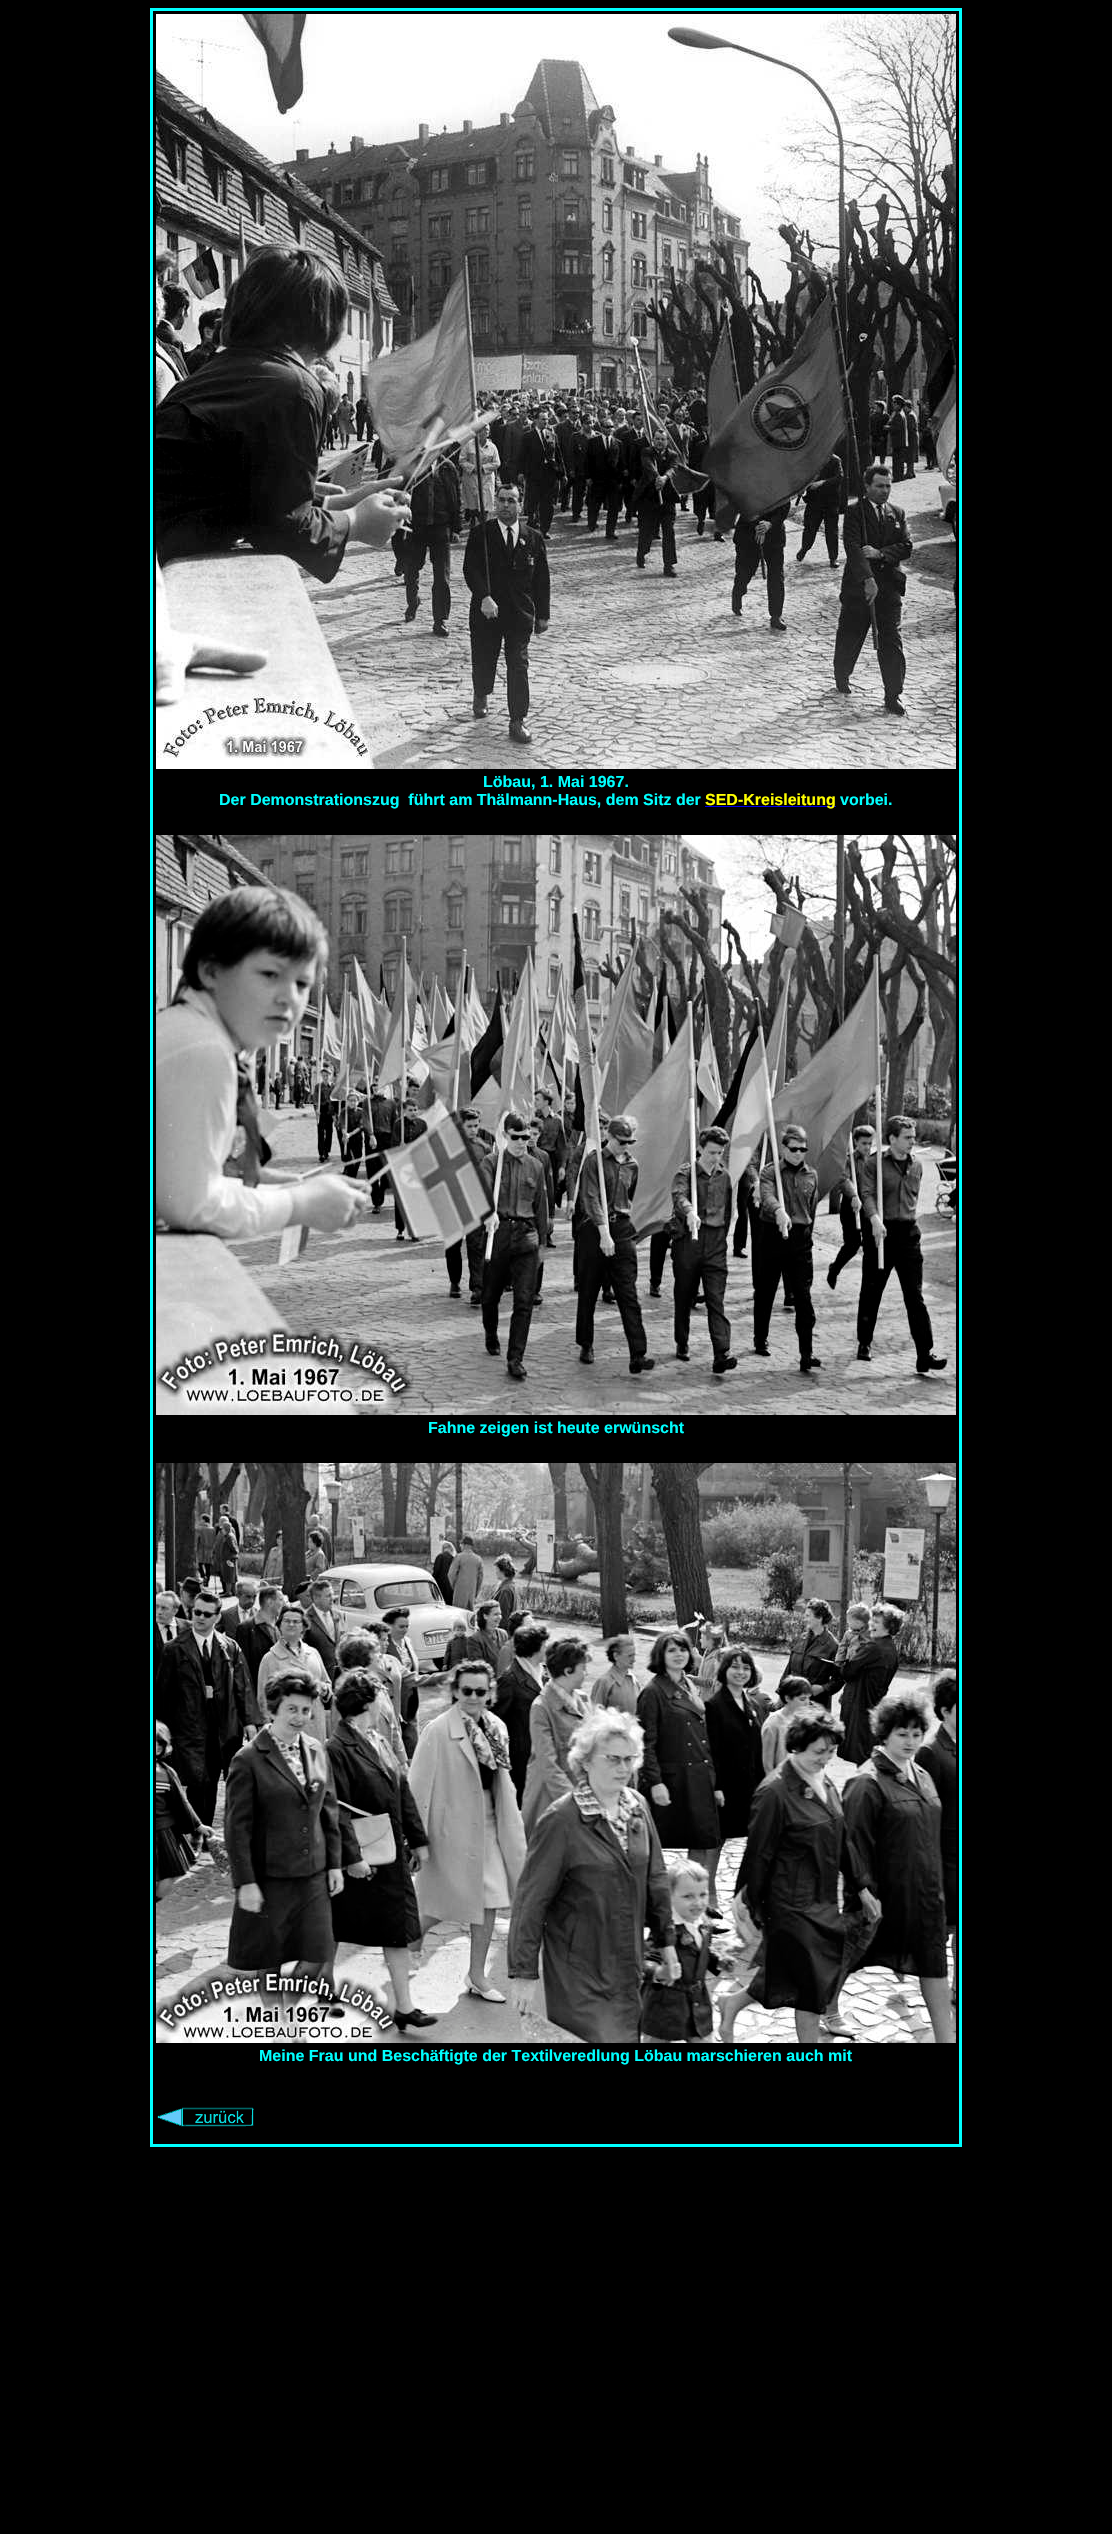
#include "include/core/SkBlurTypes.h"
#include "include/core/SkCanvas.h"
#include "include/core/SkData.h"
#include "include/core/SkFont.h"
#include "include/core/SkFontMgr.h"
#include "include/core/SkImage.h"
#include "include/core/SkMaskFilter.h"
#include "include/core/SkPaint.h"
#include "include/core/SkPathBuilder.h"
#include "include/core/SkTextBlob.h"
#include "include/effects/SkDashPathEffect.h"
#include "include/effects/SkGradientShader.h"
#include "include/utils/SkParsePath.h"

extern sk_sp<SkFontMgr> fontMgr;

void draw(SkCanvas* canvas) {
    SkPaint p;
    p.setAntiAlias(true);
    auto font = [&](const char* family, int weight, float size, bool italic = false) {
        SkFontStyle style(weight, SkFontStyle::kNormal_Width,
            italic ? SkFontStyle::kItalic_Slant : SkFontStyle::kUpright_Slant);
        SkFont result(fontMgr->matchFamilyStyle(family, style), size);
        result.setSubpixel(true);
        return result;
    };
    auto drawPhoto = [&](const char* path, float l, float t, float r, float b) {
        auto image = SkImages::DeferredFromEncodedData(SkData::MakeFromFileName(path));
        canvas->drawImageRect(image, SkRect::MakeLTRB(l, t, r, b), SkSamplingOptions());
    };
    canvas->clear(0xFF000000);
    p.setStyle(SkPaint::kStroke_Style);
    p.setStrokeWidth(3);
    p.setColor(0xFF00FFFF);
    canvas->drawRect(SkRect::MakeLTRB(151.5f, 9.5f, 960.5f, 2145.5f), p);
    drawPhoto("media/1.png", 156, 14, 956, 769);
    auto font1 = font("Liberation Sans", 700, 16);
    p.setStyle(SkPaint::kFill_Style);
    canvas->drawString("Löbau, 1. Mai 1967.", 483, 787, font1, p);
    canvas->drawString("Der Demonstrationszug  führt am Thälmann-Haus, dem Sitz der", 219, 805, font1, p);
    p.setColor(0xFF0000EE);
    canvas->drawRect(SkRect::MakeLTRB(705, 806, 836, 807), p);
    p.setColor(0xFFFFFF00);
    canvas->drawString("SED-Kreisleitung", 705, 805, font1, p);
    p.setColor(0xFF00FFFF);
    canvas->drawString("vorbei.", 840, 805, font1, p);
    drawPhoto("media/2.png", 156, 835, 956, 1415);
    canvas->drawString("Fahne zeigen ist heute erwünscht", 428, 1433, font1, p);
    drawPhoto("media/3.png", 156, 1463, 956, 2043);
    canvas->drawString("Meine Frau und Beschäftigte der Textilveredlung Löbau marschieren auch mit", 259, 2061, font1, p);
    drawPhoto("media/4.png", 157, 2107, 254, 2127);
}
